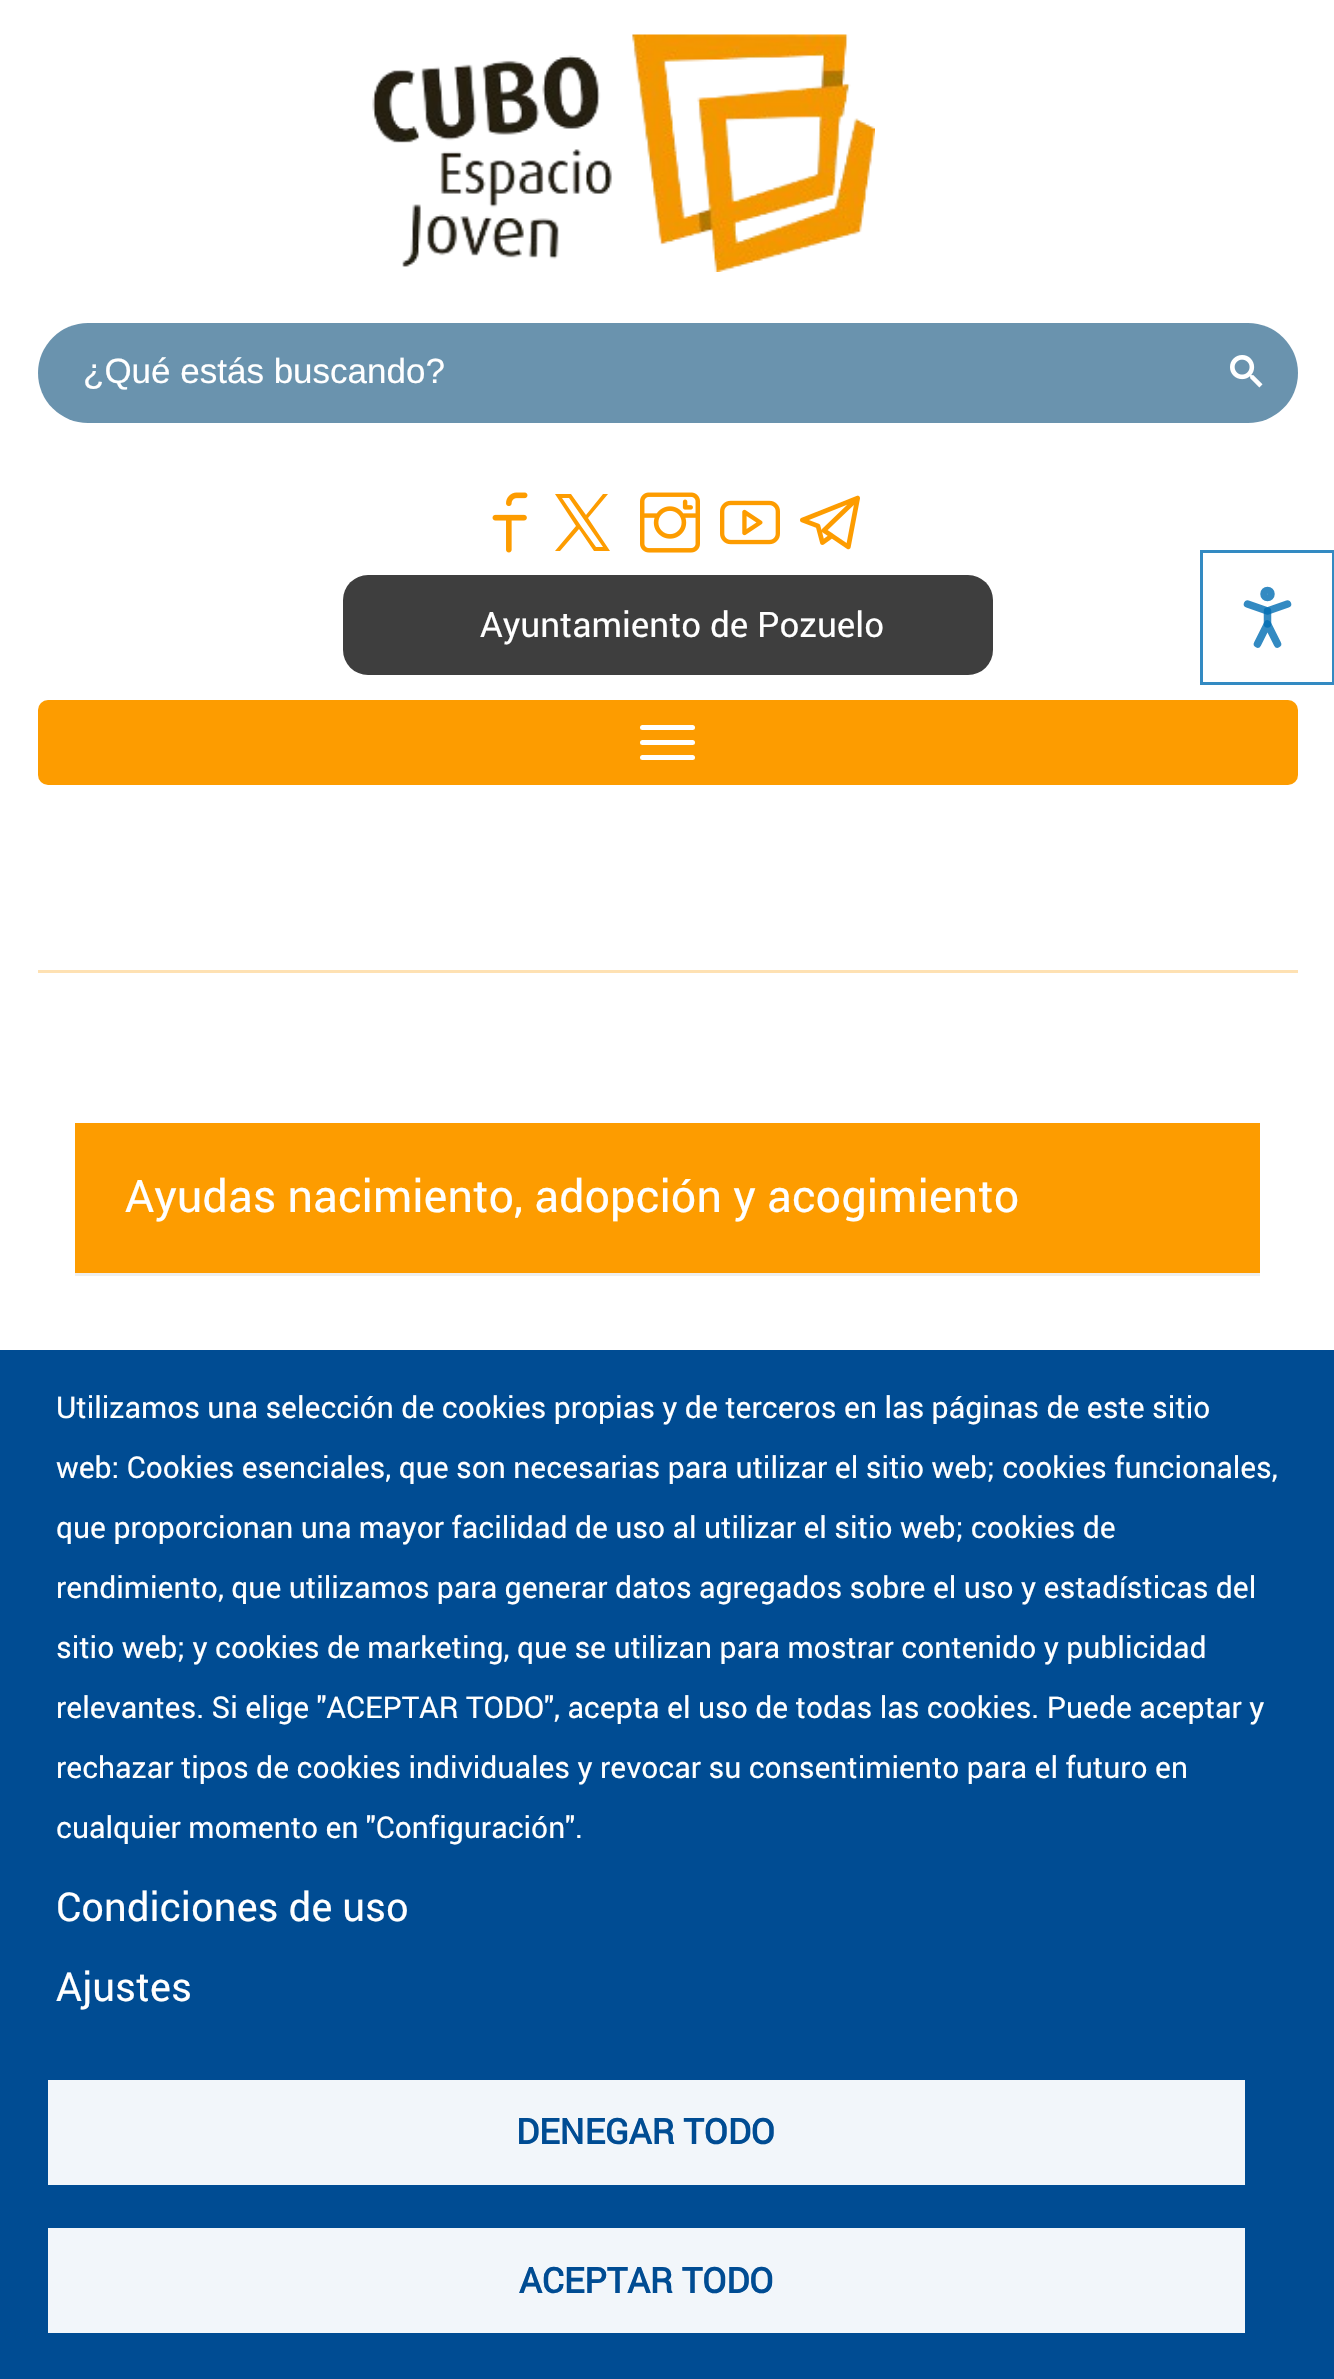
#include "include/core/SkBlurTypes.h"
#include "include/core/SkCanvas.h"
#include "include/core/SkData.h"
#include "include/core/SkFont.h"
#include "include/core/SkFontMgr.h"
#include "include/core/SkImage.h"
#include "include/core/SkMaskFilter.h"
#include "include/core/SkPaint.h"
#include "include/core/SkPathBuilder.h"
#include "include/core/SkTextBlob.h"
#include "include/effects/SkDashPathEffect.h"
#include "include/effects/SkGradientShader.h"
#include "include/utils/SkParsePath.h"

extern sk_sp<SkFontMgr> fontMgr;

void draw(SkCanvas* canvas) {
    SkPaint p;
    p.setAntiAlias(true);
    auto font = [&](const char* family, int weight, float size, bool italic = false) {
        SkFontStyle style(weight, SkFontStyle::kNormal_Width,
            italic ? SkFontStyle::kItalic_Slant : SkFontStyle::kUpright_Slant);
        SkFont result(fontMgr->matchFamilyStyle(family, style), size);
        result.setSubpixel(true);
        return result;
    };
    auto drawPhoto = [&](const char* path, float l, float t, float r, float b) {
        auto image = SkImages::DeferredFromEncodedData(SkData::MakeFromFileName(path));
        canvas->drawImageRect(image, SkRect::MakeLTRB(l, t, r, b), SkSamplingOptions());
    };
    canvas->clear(0xFFFFFFFF);
    drawPhoto("media/1.png", 372, 34, 875, 272);
    p.setColor(0xFF6A93AE);
    canvas->drawRoundRect(SkRect::MakeLTRB(38, 323, 1298, 423), 50, 50, p);
    auto font1 = font("Liberation Sans", 400, 35);
    p.setColor(0xFFFFFFFF);
    canvas->drawString("¿Qué estás buscando?", 83, 383, font1, p);
    drawPhoto("media/2.png", 1230, 355, 1263, 388);
    drawPhoto("media/3.png", 492, 492, 528, 553);
    p.setColor(0xFFFD9C00);
    canvas->drawPath(SkPathBuilder().moveTo(588, 518).lineTo(608, 494).lineTo(603, 494).lineTo(586, 515).lineTo(571, 494).lineTo(555, 494).lineTo(576, 526).lineTo(555, 551).lineTo(560, 551).lineTo(579, 529).lineTo(594, 551).lineTo(610, 551).close().moveTo(581, 526).lineTo(562, 498).lineTo(569, 498).lineTo(603, 547).lineTo(596, 547).close().detach(), p);
    drawPhoto("media/4.png", 640, 492, 700, 553);
    drawPhoto("media/5.png", 720, 500, 780, 545);
    drawPhoto("media/6.png", 800, 495, 860, 550);
    p.setColor(0xFF3E3E3E);
    canvas->drawRoundRect(SkRect::MakeLTRB(343, 575, 993, 675), 25, 25, p);
    auto font2 = font("roboto", 400, 35);
    p.setColor(0xFFFFFFFF);
    canvas->drawString("Ayuntamiento de Pozuelo", 480, 637, font2, p);
    p.setColor(0xFFFD9C00);
    canvas->drawRoundRect(SkRect::MakeLTRB(38, 700, 1298, 785), 10, 10, p);
    p.setColor(0xFFFFFFFF);
    canvas->drawRoundRect(SkRect::MakeLTRB(640, 725, 695, 730), 2.5f, 2.5f, p);
    canvas->drawRoundRect(SkRect::MakeLTRB(640, 740, 695, 745), 2.5f, 2.5f, p);
    canvas->drawRoundRect(SkRect::MakeLTRB(640, 755, 695, 760), 2.5f, 2.5f, p);
    {
        const struct { float l, t, r, b; SkColor color; } items[] = {
            {38, 970, 1298, 973, 0xFFFEE1B3},
            {75, 1123, 1260, 1273, 0xFFFD9C00},
            {75, 1273, 1260, 1276, 0xFFEEEEEE},
        };
        for (auto [l, t, r, b, color] : items) {
            p.setColor(color);
            canvas->drawRect(SkRect::MakeLTRB(l, t, r, b), p);
        }
    }
    auto font3 = font("roboto", 400, 45);
    p.setColor(0xFFFFFFFF);
    canvas->drawString("Ayudas nacimiento, adopción y acogimiento", 125, 1212, font3, p);
    p.setStyle(SkPaint::kStroke_Style);
    p.setStrokeWidth(3);
    p.setColor(0xFF338AC2);
    canvas->drawRect(SkRect::MakeLTRB(1201.5f, 551.5f, 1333.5f, 683.5f), p);
    p.setStrokeWidth(7.5f);
    canvas->drawCircle(1267.5f, 594, 3.5f, p);
    p.setStrokeCap(SkPaint::kRound_Cap);
    p.setStrokeJoin(SkPaint::kRound_Join);
    canvas->drawPath(SkPathBuilder().moveTo(1257.5f, 644).lineTo(1267.5f, 624).lineTo(1277.5f, 644).moveTo(1247.5f, 604).lineTo(1267.5f, 611).lineTo(1287.5f, 604).detach(), p);
    p.setColor(0xCC006DB3);
    canvas->drawPath(SkPathBuilder().moveTo(1267.5f, 611).lineTo(1267.5f, 624).detach(), p);
    p.setStyle(SkPaint::kFill_Style);
    p.setColor(0xFF004C93);
    canvas->drawRect(SkRect::MakeLTRB(0, 1350, 1334, 2379), p);
    auto font4 = font("roboto", 400, 30);
    p.setColor(0xFFFFFFFF);
    {
        const struct { const char* s; float x, y; } items[] = {
            {"Utilizamos una selección de cookies propias y de terceros en las páginas de este sitio", 56, 1418},
            {"web: Cookies esenciales, que son necesarias para utilizar el sitio web; cookies funcionales,", 56, 1478},
            {"que proporcionan una mayor facilidad de uso al utilizar el sitio web; cookies de", 56, 1538},
            {"rendimiento, que utilizamos para generar datos agregados sobre el uso y estadísticas del", 56, 1598},
            {"sitio web; y cookies de marketing, que se utilizan para mostrar contenido y publicidad", 56, 1658},
            {"relevantes. Si elige \"ACEPTAR TODO\", acepta el uso de todas las cookies. Puede aceptar y", 56, 1718},
            {"rechazar tipos de cookies individuales y revocar su consentimiento para el futuro en", 56, 1778},
            {"cualquier momento en \"Configuración\".", 56, 1838},
        };
        for (auto [s, x, y] : items) {
            canvas->drawString(s, x, y, font4, p);
        }
    }
    auto font5 = font("roboto", 400, 40);
    canvas->drawString("Condiciones de uso", 56, 1921, font5, p);
    canvas->drawString("Ajustes", 56, 2001, font5, p);
    p.setColor(0xFFF2F6FA);
    canvas->drawRect(SkRect::MakeLTRB(48, 2080, 1245, 2185), p);
    auto font6 = font("roboto", 700, 35);
    p.setColor(0xFF004C93);
    canvas->drawString("DENEGAR TODO", 516, 2144, font6, p);
    p.setColor(0xFFF2F6FA);
    canvas->drawRect(SkRect::MakeLTRB(48, 2228, 1245, 2333), p);
    p.setColor(0xFF004C93);
    canvas->drawString("ACEPTAR TODO", 519, 2293, font6, p);
}
